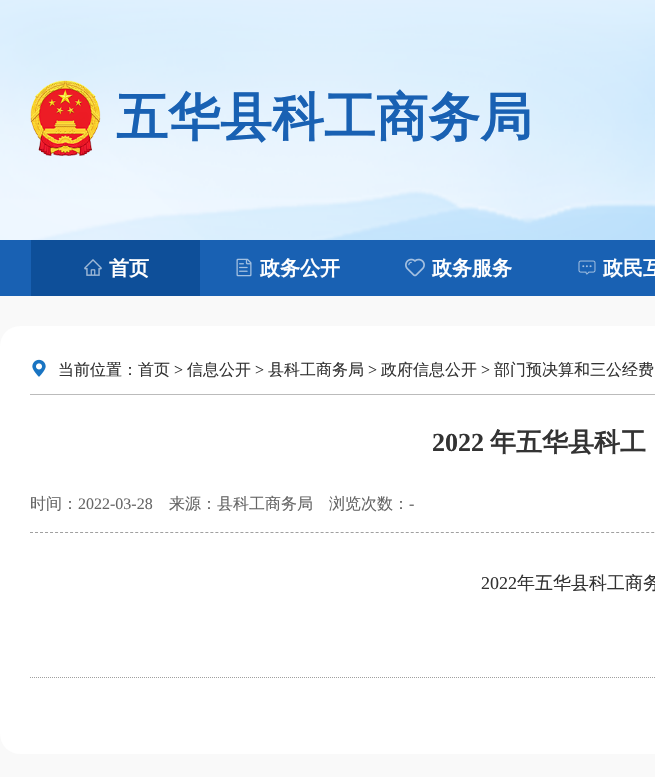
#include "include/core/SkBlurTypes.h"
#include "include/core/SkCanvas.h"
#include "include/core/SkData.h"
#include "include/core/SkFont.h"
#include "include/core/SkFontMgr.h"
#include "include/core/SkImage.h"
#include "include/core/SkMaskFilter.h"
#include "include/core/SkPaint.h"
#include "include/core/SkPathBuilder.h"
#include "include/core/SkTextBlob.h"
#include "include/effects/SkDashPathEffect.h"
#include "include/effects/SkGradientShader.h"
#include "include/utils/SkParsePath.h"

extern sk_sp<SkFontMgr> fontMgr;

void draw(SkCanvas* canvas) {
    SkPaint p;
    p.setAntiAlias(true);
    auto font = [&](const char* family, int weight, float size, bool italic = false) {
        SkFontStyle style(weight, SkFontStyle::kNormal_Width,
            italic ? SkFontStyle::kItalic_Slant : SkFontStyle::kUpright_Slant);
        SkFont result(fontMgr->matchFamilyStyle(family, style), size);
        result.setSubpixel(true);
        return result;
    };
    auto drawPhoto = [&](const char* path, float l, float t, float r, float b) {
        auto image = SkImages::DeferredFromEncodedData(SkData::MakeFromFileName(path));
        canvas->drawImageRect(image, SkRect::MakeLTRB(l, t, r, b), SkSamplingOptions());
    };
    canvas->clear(0xFFF9F9F9);
    drawPhoto("media/1.png", 0, 0, 655, 240);
    drawPhoto("media/2.png", 30, 80, 101, 156);
    auto font1 = font("WenQuanYi Zen Hei", 700, 52);
    p.setColor(0xFF1961B3);
    canvas->drawString("五华县科工商务局", 116, 135, font1, p);
    canvas->drawRect(SkRect::MakeLTRB(0, 240, 655, 296), p);
    p.setColor(0xFF0E4F99);
    canvas->drawRect(SkRect::MakeLTRB(31, 240, 200, 296), p);
    drawPhoto("media/3.png", 84, 259, 102, 276);
    auto font2 = font("WenQuanYi Zen Hei", 700, 20);
    p.setColor(0xFFFFFFFF);
    canvas->drawString("首页", 109, 275, font2, p);
    drawPhoto("media/4.png", 236, 258, 252, 277);
    canvas->drawString("政务公开", 260, 275, font2, p);
    drawPhoto("media/5.png", 405, 258, 425, 277);
    canvas->drawString("政务服务", 432, 275, font2, p);
    drawPhoto("media/6.png", 578, 260, 596, 275);
    canvas->drawString("政民互", 603, 275, font2, p);
    canvas->drawRoundRect(SkRect::MakeLTRB(0, 326, 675, 754), 20, 20, p);
    p.setColor(0xFFBBBBBB);
    canvas->drawRect(SkRect::MakeLTRB(30, 394, 655, 395), p);
    drawPhoto("media/7.png", 32, 359, 46, 377);
    auto font3 = font("WenQuanYi Zen Hei", 500, 16);
    p.setColor(0xFF333333);
    canvas->drawString("当前位置：首页", 58, 375, font3, p);
    auto font4 = font("Liberation Serif", 400, 16);
    canvas->drawString(">", 174, 375, font4, p);
    canvas->drawString("信息公开", 187, 375, font3, p);
    canvas->drawString(">", 255, 375, font4, p);
    canvas->drawString("县科工商务局", 268, 375, font3, p);
    canvas->drawString(">", 368, 375, font4, p);
    canvas->drawString("政府信息公开", 381, 375, font3, p);
    canvas->drawString(">", 481, 375, font4, p);
    canvas->drawString("部门预决算和三公经费", 494, 375, font3, p);
    auto font5 = font("Liberation Serif", 700, 26);
    canvas->drawString("2022", 432, 451, font5, p);
    auto font6 = font("WenQuanYi Zen Hei", 700, 26);
    canvas->drawString("年五华县科工", 490, 451, font6, p);
    p.setStyle(SkPaint::kStroke_Style);
    p.setStrokeWidth(1);
    p.setColor(0xFFA0A0A0);
    p.setPathEffect(SkDashPathEffect::Make({{3, 2.01f}}, 0));
    canvas->drawPath(SkPathBuilder().moveTo(30, 532.5f).lineTo(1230, 532.5f).detach(), p);
    p.setPathEffect(nullptr);
    p.setStyle(SkPaint::kFill_Style);
    p.setColor(0xFF666666);
    canvas->drawString("时间：", 30, 509, font3, p);
    canvas->drawString("2022-03-28", 78, 509, font4, p);
    canvas->drawString("来源：县科工商务局", 169, 509, font3, p);
    canvas->drawString("浏览次数：", 329, 509, font3, p);
    canvas->drawString("-", 409, 509, font4, p);
    auto font7 = font("Liberation Serif", 400, 18);
    p.setColor(0xFF333333);
    canvas->drawString("2022", 481, 589, font7, p);
    auto font8 = font("WenQuanYi Zen Hei", 500, 18);
    canvas->drawString("年五华县科工商务", 517, 589, font8, p);
    p.setStyle(SkPaint::kStroke_Style);
    p.setColor(0xFFA0A0A0);
    p.setPathEffect(SkDashPathEffect::Make({{1, 1}}, 0));
    canvas->drawPath(SkPathBuilder().moveTo(30, 677.5f).lineTo(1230, 677.5f).detach(), p);
    p.setPathEffect(nullptr);
}
